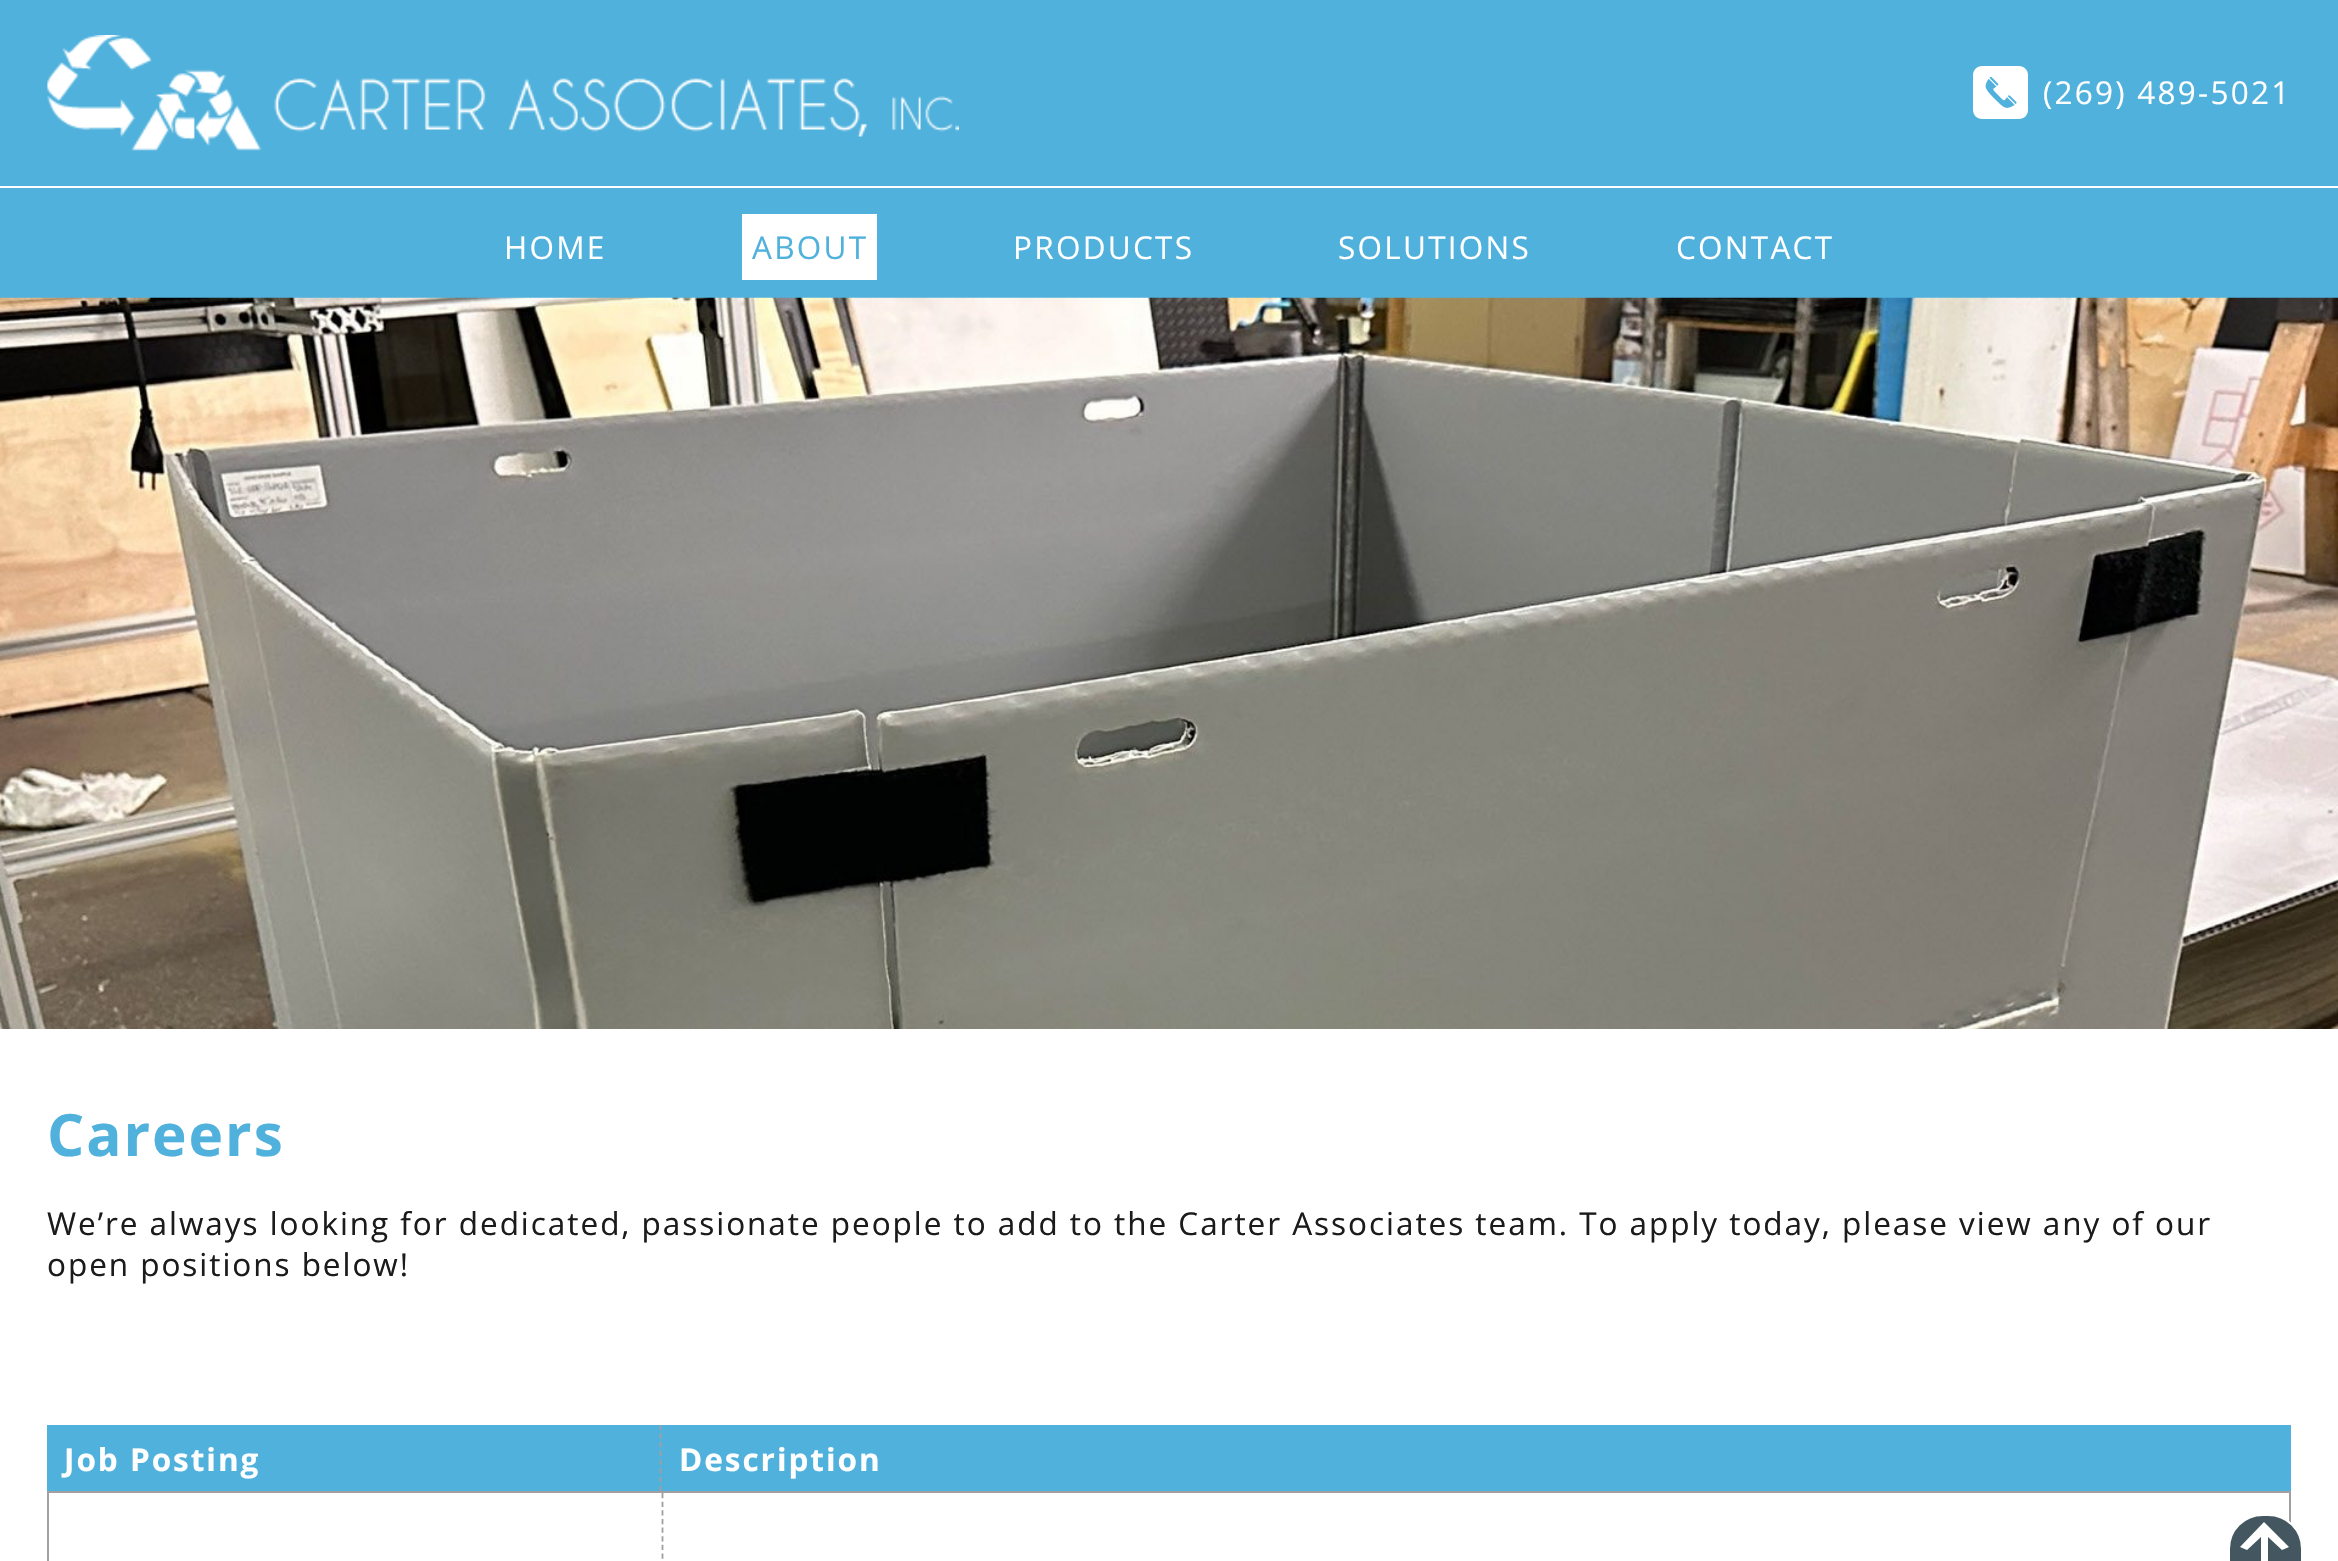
#include "include/core/SkBlurTypes.h"
#include "include/core/SkCanvas.h"
#include "include/core/SkData.h"
#include "include/core/SkFont.h"
#include "include/core/SkFontMgr.h"
#include "include/core/SkImage.h"
#include "include/core/SkMaskFilter.h"
#include "include/core/SkPaint.h"
#include "include/core/SkPathBuilder.h"
#include "include/core/SkTextBlob.h"
#include "include/effects/SkDashPathEffect.h"
#include "include/effects/SkGradientShader.h"
#include "include/utils/SkParsePath.h"

extern sk_sp<SkFontMgr> fontMgr;

void draw(SkCanvas* canvas) {
    SkPaint p;
    p.setAntiAlias(true);
    auto font = [&](const char* family, int weight, float size, bool italic = false) {
        SkFontStyle style(weight, SkFontStyle::kNormal_Width,
            italic ? SkFontStyle::kItalic_Slant : SkFontStyle::kUpright_Slant);
        SkFont result(fontMgr->matchFamilyStyle(family, style), size);
        result.setSubpixel(true);
        return result;
    };
    auto drawTracked = [&](const char* s, float x, float y, const SkFont& font, const SkPaint& ink, float letter, float word) {
        std::vector<SkGlyphID> glyphs(font.countText(s, strlen(s), SkTextEncoding::kUTF8));
        std::vector<float> xs(glyphs.size());
        font.textToGlyphs(s, strlen(s), SkTextEncoding::kUTF8, glyphs);
        font.getXPos(glyphs, xs, x);
        float extra = 0;
        for (size_t i = 0; i < glyphs.size(); i++) {
            xs[i] += extra;
            extra += letter + word * (glyphs[i] == font.unicharToGlyph(' '));
        }
        canvas->drawTextBlob(SkTextBlob::MakeFromPosHGlyphs(glyphs, xs, y, font), 0, 0, ink);
    };
    auto drawPhoto = [&](const char* path, float l, float t, float r, float b) {
        auto image = SkImages::DeferredFromEncodedData(SkData::MakeFromFileName(path));
        canvas->drawImageRect(image, SkRect::MakeLTRB(l, t, r, b), SkSamplingOptions());
    };
    canvas->clear(0xFFFFFFFF);
    p.setColor(0xFF4FB1DC);
    canvas->drawRect(SkRect::MakeLTRB(0, 0, 2338, 186), p);
    drawPhoto("media/1.png", 47, 35, 959, 151);
    p.setColor(0xFFFFFFFF);
    canvas->drawPath(SkPathBuilder().moveTo(2019, 66).lineTo(1982, 66).cubicTo(1977, 66, 1973, 70, 1973, 75).lineTo(1973, 110).cubicTo(1973, 115, 1977, 119, 1982, 119).lineTo(2019, 119).cubicTo(2024, 119, 2028, 115, 2028, 110).lineTo(2028, 75).cubicTo(2028, 70, 2024, 66, 2019, 66).close().detach(), p);
    drawPhoto("media/2.png", 1985, 76, 2017, 108);
    auto font1 = font("Open Sans", 400, 31.5f);
    drawTracked("(269) 489-5021", 2043, 104, font1, p, 2.25f, 0);
    p.setColor(0xFF4FB1DC);
    canvas->drawRect(SkRect::MakeLTRB(0, 188, 2338, 298), p);
    p.setColor(0xFFFFFFFF);
    drawTracked("HOME", 504, 259, font1, p, 2.25f, 0);
    canvas->drawRect(SkRect::MakeLTRB(742, 214, 877, 280), p);
    p.setColor(0xFF4FB1DC);
    drawTracked("ABOUT", 752, 259, font1, p, 2.25f, 0);
    p.setColor(0xFFFFFFFF);
    {
        const struct { const char* s; float x, y; } items[] = {
            {"PRODUCTS", 1013, 259},
            {"SOLUTIONS", 1338, 259},
            {"CONTACT", 1676, 259},
        };
        for (auto [s, x, y] : items) {
            drawTracked(s, x, y, font1, p, 2.25f, 0);
        }
    }
    drawPhoto("media/3.png", 0, 297, 2338, 1029);
    auto font2 = font("Open Sans", 700, 58.5f);
    p.setColor(0xFF4FB1DC);
    drawTracked("Careers", 47, 1156, font2, p, 1.96f, 0);
    p.setColor(0xFF1B1B1B);
    drawTracked("We’re always looking for dedicated, passionate people to add to the Carter Associates team. To apply today, please view any of our", 47, 1235, font1, p, 1.96f, 0);
    drawTracked("open positions below!", 47, 1276, font1, p, 1.96f, 0);
    p.setColor(0xFF4FB1DC);
    canvas->drawRect(SkRect::MakeLTRB(47, 1425, 2291, 1491), p);
    auto font3 = font("Open Sans", 700, 31.5f);
    p.setColor(0xFFFFFFFF);
    drawTracked("Job Posting", 64, 1471, font3, p, 1.96f, 0);
    canvas->save();
    canvas->clipRect(SkRect::MakeLTRB(47, 1425, 2291, 1491));
    p.setStyle(SkPaint::kStroke_Style);
    p.setStrokeWidth(1.8f);
    p.setColor(0xFFA19FA0);
    p.setPathEffect(SkDashPathEffect::Make({{5.25f, 3.5f}}, 0));
    canvas->drawPath(SkPathBuilder().moveTo(660.5f, 1424.5f).lineTo(660.5f, 1491).detach(), p);
    p.setPathEffect(nullptr);
    canvas->restore();
    p.setStyle(SkPaint::kFill_Style);
    p.setColor(0xFFFFFFFF);
    drawTracked("Description", 679, 1471, font3, p, 1.96f, 0);
    p.setStyle(SkPaint::kStroke_Style);
    p.setStrokeWidth(2);
    p.setColor(0xFFA19FA0);
    canvas->drawRect(SkRect::MakeLTRB(48, 1492, 2290, 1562), p);
    p.setStrokeWidth(1.8f);
    p.setPathEffect(SkDashPathEffect::Make({{5.25f, 3.38f}}, 0));
    canvas->drawPath(SkPathBuilder().moveTo(662.5f, 1493).lineTo(662.5f, 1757).detach(), p);
    p.setPathEffect(nullptr);
    p.setStyle(SkPaint::kFill_Style);
    p.setColor(0xFF445761);
    canvas->drawPath(SkPathBuilder().moveTo(2263, 1515).lineTo(2268, 1515).cubicTo(2287, 1515, 2302, 1530, 2302, 1549).lineTo(2302, 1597).lineTo(2229, 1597).lineTo(2229, 1549).cubicTo(2229, 1530, 2244, 1515, 2263, 1515).close().detach(), p);
    p.setStyle(SkPaint::kStroke_Style);
    p.setStrokeWidth(2);
    p.setColor(0xFFFFFFFF);
    canvas->drawPath(SkPathBuilder().moveTo(2263, 1515).lineTo(2268, 1515).cubicTo(2287, 1515, 2302, 1530, 2302, 1549).lineTo(2302, 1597).lineTo(2229, 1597).lineTo(2229, 1549).cubicTo(2229, 1530, 2244, 1515, 2263, 1515).close().detach(), p);
    p.setStyle(SkPaint::kFill_Style);
    canvas->drawPath(SkPathBuilder().moveTo(2268, 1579).lineTo(2261, 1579).lineTo(2261, 1537).lineTo(2247, 1550).lineTo(2240, 1547).lineTo(2264, 1522).lineTo(2289, 1547).lineTo(2282, 1550).lineTo(2268, 1537).close().detach(), p);
}
